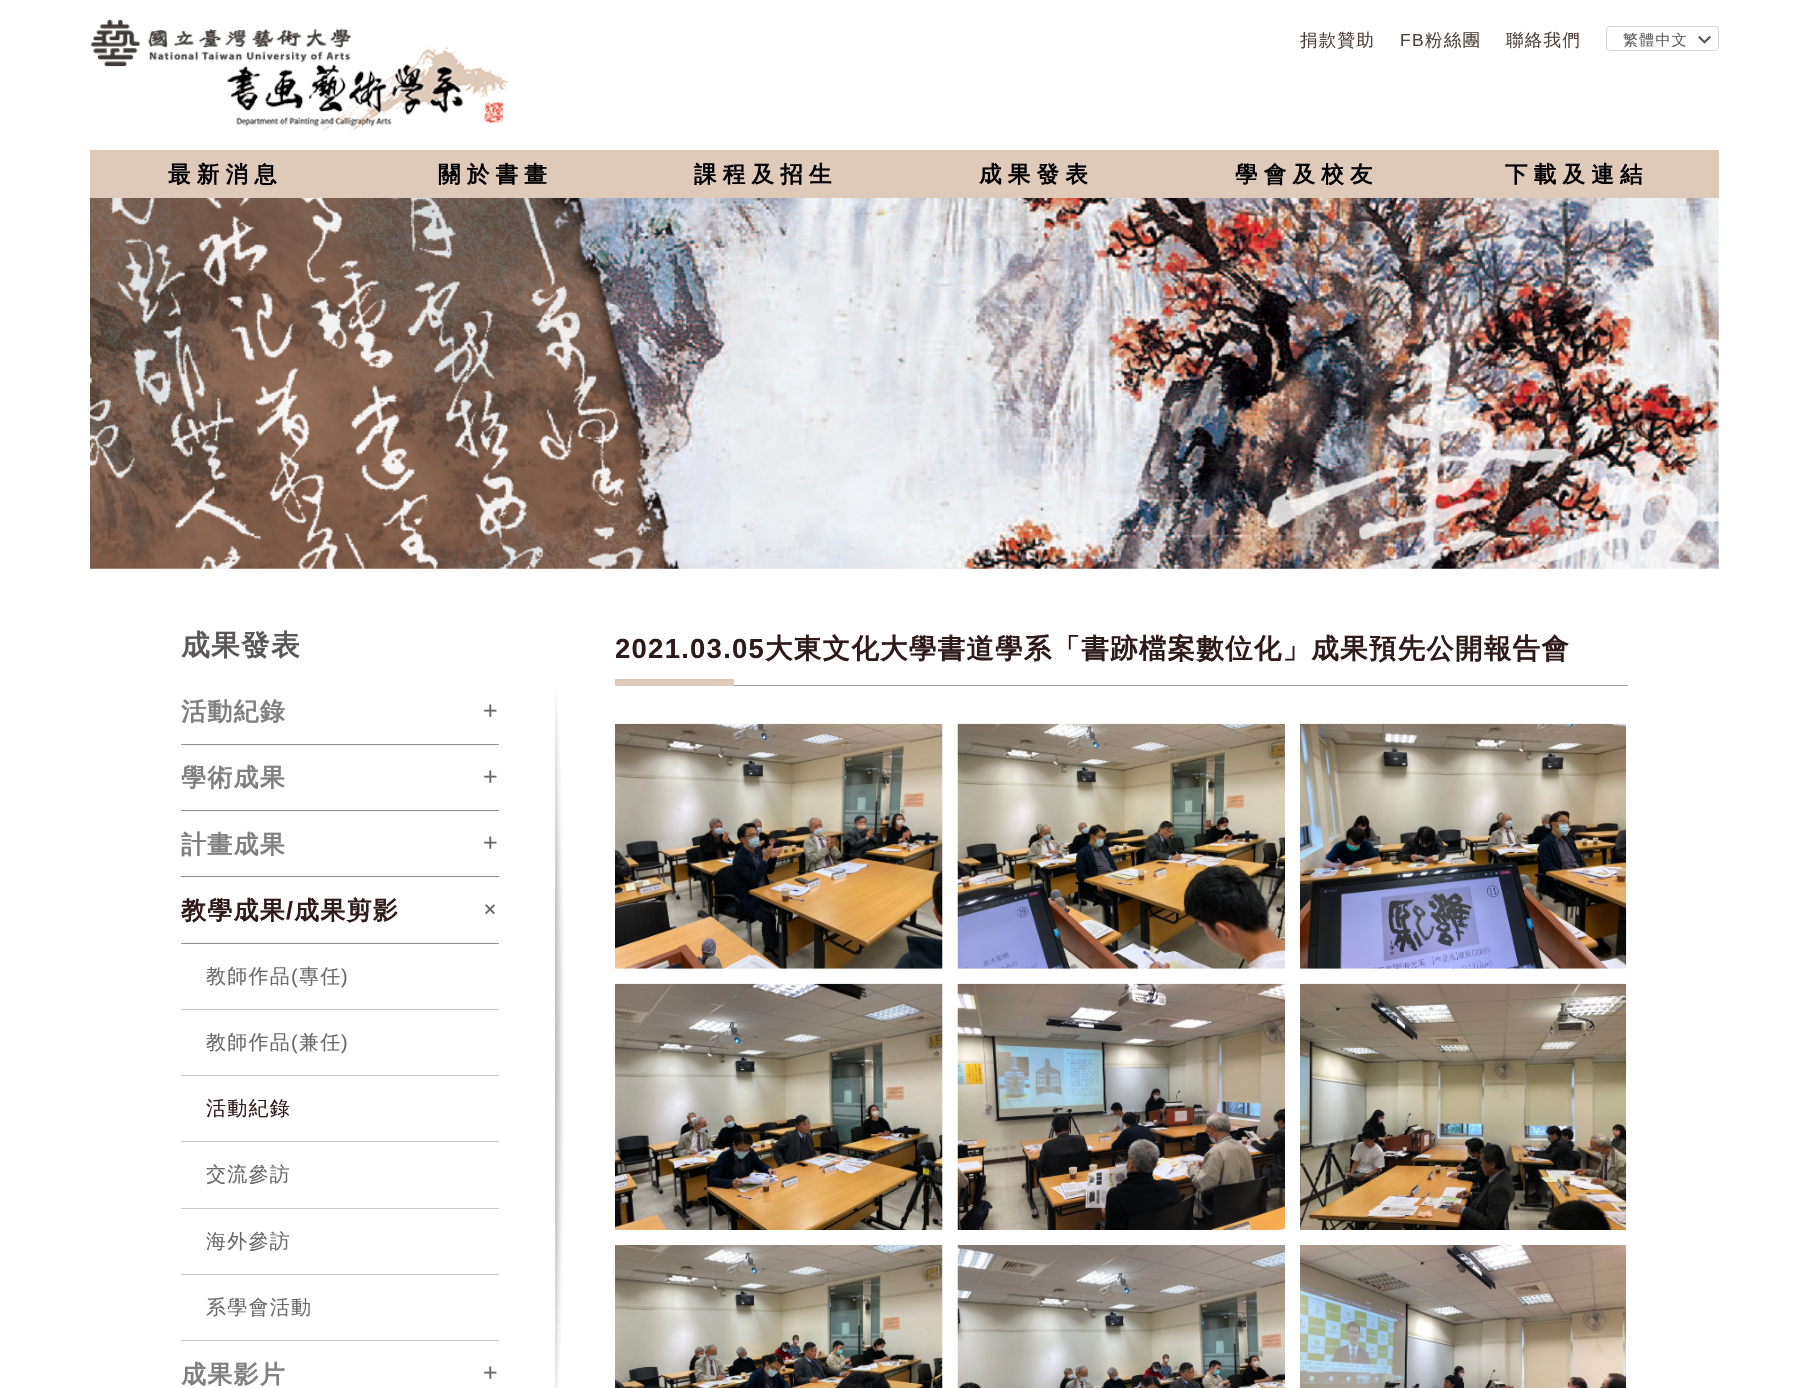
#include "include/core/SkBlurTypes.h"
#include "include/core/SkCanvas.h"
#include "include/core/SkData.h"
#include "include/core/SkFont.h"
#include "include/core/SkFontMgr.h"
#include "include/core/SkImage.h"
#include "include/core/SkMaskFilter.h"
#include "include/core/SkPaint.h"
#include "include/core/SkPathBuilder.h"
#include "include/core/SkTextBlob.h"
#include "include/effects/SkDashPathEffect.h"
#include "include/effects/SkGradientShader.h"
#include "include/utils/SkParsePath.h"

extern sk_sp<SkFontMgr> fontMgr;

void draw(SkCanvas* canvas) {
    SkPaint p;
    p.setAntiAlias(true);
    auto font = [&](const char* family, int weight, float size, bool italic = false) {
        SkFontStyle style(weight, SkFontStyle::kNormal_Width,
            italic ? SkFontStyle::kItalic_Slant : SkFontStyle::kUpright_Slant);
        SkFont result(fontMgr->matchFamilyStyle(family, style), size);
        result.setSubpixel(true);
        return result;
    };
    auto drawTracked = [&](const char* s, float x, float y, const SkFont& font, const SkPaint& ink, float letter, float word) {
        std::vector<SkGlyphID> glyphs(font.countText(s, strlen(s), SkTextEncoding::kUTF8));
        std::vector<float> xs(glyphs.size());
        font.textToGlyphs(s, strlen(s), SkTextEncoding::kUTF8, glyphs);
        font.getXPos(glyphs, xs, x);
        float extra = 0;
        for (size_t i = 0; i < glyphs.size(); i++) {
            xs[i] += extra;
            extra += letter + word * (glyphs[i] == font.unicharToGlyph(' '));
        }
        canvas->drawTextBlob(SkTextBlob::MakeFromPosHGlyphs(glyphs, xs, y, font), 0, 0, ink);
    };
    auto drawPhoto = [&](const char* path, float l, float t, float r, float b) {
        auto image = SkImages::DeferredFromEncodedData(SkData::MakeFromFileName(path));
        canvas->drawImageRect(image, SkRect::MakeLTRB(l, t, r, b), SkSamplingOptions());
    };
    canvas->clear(0xFFFFFFFF);
    drawPhoto("media/1.png", 91, 19, 509, 131);
    auto font1 = font("WenQuanYi Zen Hei", 500, 17.5f);
    p.setColor(0xFF4E423A);
    drawTracked("捐款贊助", 1300, 46, font1, p, 1.25f, 0);
    auto font2 = font("Liberation Sans", 400, 17.5f);
    drawTracked("FB", 1400, 46, font2, p, 1.25f, 0);
    drawTracked("粉絲團", 1425, 46, font1, p, 1.25f, 0);
    drawTracked("聯絡我們", 1506, 46, font1, p, 1.25f, 0);
    drawPhoto("media/2.png", 1698, 36, 1711, 44);
    p.setStyle(SkPaint::kStroke_Style);
    p.setStrokeWidth(1);
    p.setColor(0xFFD3D4D4);
    canvas->drawRoundRect(SkRect::MakeLTRB(1606.5f, 26.5f, 1718.5f, 50.5f), 3.5f, 3.5f, p);
    auto font3 = font("WenQuanYi Zen Hei", 500, 15);
    p.setStyle(SkPaint::kFill_Style);
    p.setColor(0xFF5E5E5E);
    drawTracked("繁體中文", 1623, 45, font3, p, 1.25f, 0);
    p.setColor(0xFFDFC9B8);
    canvas->drawRect(SkRect::MakeLTRB(90, 150, 1719, 198), p);
    auto font4 = font("WenQuanYi Zen Hei", 700, 22.5f);
    p.setColor(0xFF000000);
    {
        const struct { const char* s; float x, y; } items[] = {
            {"最新消息", 168, 182},
            {"關於書畫", 438, 182},
            {"課程及招生", 694, 182},
            {"成果發表", 979, 182},
            {"學會及校友", 1235, 182},
            {"下載及連結", 1505, 182},
        };
        for (auto [s, x, y] : items) {
            drawTracked(s, x, y, font4, p, 6.25f, 0);
        }
    }
    drawPhoto("media/3.png", 90, 198, 1719, 569);
    auto font5 = font("WenQuanYi Zen Hei", 700, 28.75f);
    p.setColor(0xFF595757);
    drawTracked("成果發表", 181, 655, font5, p, 1.25f, 0);
    p.setColor(0xFF8C8C8C);
    canvas->drawRect(SkRect::MakeLTRB(181, 744, 499, 745), p);
    auto font6 = font("WenQuanYi Zen Hei", 700, 25);
    p.setColor(0xFF808080);
    drawTracked("活動紀錄", 181, 720, font6, p, 1.25f, 0);
    auto font7 = font("Liberation Sans", 400, 25);
    p.setColor(0xFF696969);
    drawTracked("+", 483, 719, font7, p, 1.25f, 0);
    p.setColor(0xFF8C8C8C);
    canvas->drawRect(SkRect::MakeLTRB(181, 810, 499, 811), p);
    p.setColor(0xFF808080);
    drawTracked("學術成果", 181, 786, font6, p, 1.25f, 0);
    p.setColor(0xFF696969);
    drawTracked("+", 483, 785, font7, p, 1.25f, 0);
    p.setColor(0xFF8C8C8C);
    canvas->drawRect(SkRect::MakeLTRB(181, 876, 499, 877), p);
    p.setColor(0xFF808080);
    drawTracked("計畫成果", 181, 853, font6, p, 1.25f, 0);
    p.setColor(0xFF696969);
    drawTracked("+", 483, 851, font7, p, 1.25f, 0);
    p.setColor(0xFF8C8C8C);
    canvas->drawRect(SkRect::MakeLTRB(181, 943, 499, 944), p);
    p.setColor(0xFF2F1A1A);
    drawTracked("教學成果", 181, 919, font6, p, 1.25f, 0);
    auto font8 = font("Liberation Sans", 700, 25);
    drawTracked("/", 286, 919, font8, p, 1.25f, 0);
    drawTracked("成果剪影", 294, 919, font6, p, 1.25f, 0);
    p.setColor(0xFF696969);
    canvas->save();
    canvas->rotate(45, 479, 910);
    drawTracked("+", 479, 910, font7, p, 1.25f, 0);
    canvas->restore();
    p.setColor(0xFFC9CACA);
    canvas->drawRect(SkRect::MakeLTRB(181, 1009, 499, 1010), p);
    auto font9 = font("WenQuanYi Zen Hei", 500, 20);
    p.setColor(0xFF696969);
    drawTracked("教師作品", 206, 983, font9, p, 1.25f, 0);
    auto font10 = font("Liberation Sans", 400, 20);
    drawTracked("(", 291, 983, font10, p, 1.25f, 0);
    drawTracked("專任", 299, 983, font9, p, 1.25f, 0);
    drawTracked(")", 341, 983, font10, p, 1.25f, 0);
    p.setColor(0xFFC9CACA);
    canvas->drawRect(SkRect::MakeLTRB(181, 1075, 499, 1076), p);
    p.setColor(0xFF696969);
    drawTracked("教師作品", 206, 1049, font9, p, 1.25f, 0);
    drawTracked("(", 291, 1049, font10, p, 1.25f, 0);
    drawTracked("兼任", 299, 1049, font9, p, 1.25f, 0);
    drawTracked(")", 341, 1049, font10, p, 1.25f, 0);
    p.setColor(0xFFC9CACA);
    canvas->drawRect(SkRect::MakeLTRB(181, 1141, 499, 1142), p);
    p.setColor(0xFF2F1A1A);
    drawTracked("活動紀錄", 206, 1115, font9, p, 1.25f, 0);
    p.setColor(0xFFC9CACA);
    canvas->drawRect(SkRect::MakeLTRB(181, 1208, 499, 1209), p);
    p.setColor(0xFF696969);
    drawTracked("交流參訪", 206, 1181, font9, p, 1.25f, 0);
    p.setColor(0xFFC9CACA);
    canvas->drawRect(SkRect::MakeLTRB(181, 1274, 499, 1275), p);
    p.setColor(0xFF696969);
    drawTracked("海外參訪", 206, 1248, font9, p, 1.25f, 0);
    p.setColor(0xFFC9CACA);
    canvas->drawRect(SkRect::MakeLTRB(181, 1340, 499, 1341), p);
    p.setColor(0xFF696969);
    drawTracked("系學會活動", 206, 1314, font9, p, 1.25f, 0);
    p.setColor(0xFF808080);
    drawTracked("成果影片", 181, 1383, font6, p, 1.25f, 0);
    p.setColor(0xFF696969);
    drawTracked("+", 483, 1381, font7, p, 1.25f, 0);
    drawPhoto("media/4.png", 555, 694, 564, 1388);
    p.setColor(0xFFA0A0A0);
    canvas->drawRect(SkRect::MakeLTRB(734, 685, 1628, 686), p);
    auto font11 = font("Liberation Sans", 700, 27.5f);
    p.setColor(0xFF2F1A1A);
    drawTracked("2021.03.05", 615, 658, font11, p, 1.25f, 0);
    auto font12 = font("WenQuanYi Zen Hei", 700, 27.5f);
    drawTracked("大東文化大學書道學系「書跡檔案數位化」成果預先公開報告會", 765, 658, font12, p, 1.25f, 0);
    p.setColor(0xFFDFC9B8);
    canvas->drawRect(SkRect::MakeLTRB(615, 679, 734, 686), p);
    drawPhoto("media/5.png", 615, 723, 943, 969);
    drawPhoto("media/6.png", 957, 723, 1285, 969);
    drawPhoto("media/7.png", 1300, 723, 1627, 969);
    drawPhoto("media/8.png", 615, 983, 943, 1230);
    drawPhoto("media/9.png", 957, 983, 1285, 1230);
    drawPhoto("media/10.png", 1300, 983, 1627, 1230);
    drawPhoto("media/11.png", 615, 1245, 943, 1388);
    drawPhoto("media/12.png", 957, 1245, 1285, 1388);
    drawPhoto("media/13.png", 1300, 1245, 1627, 1388);
}
